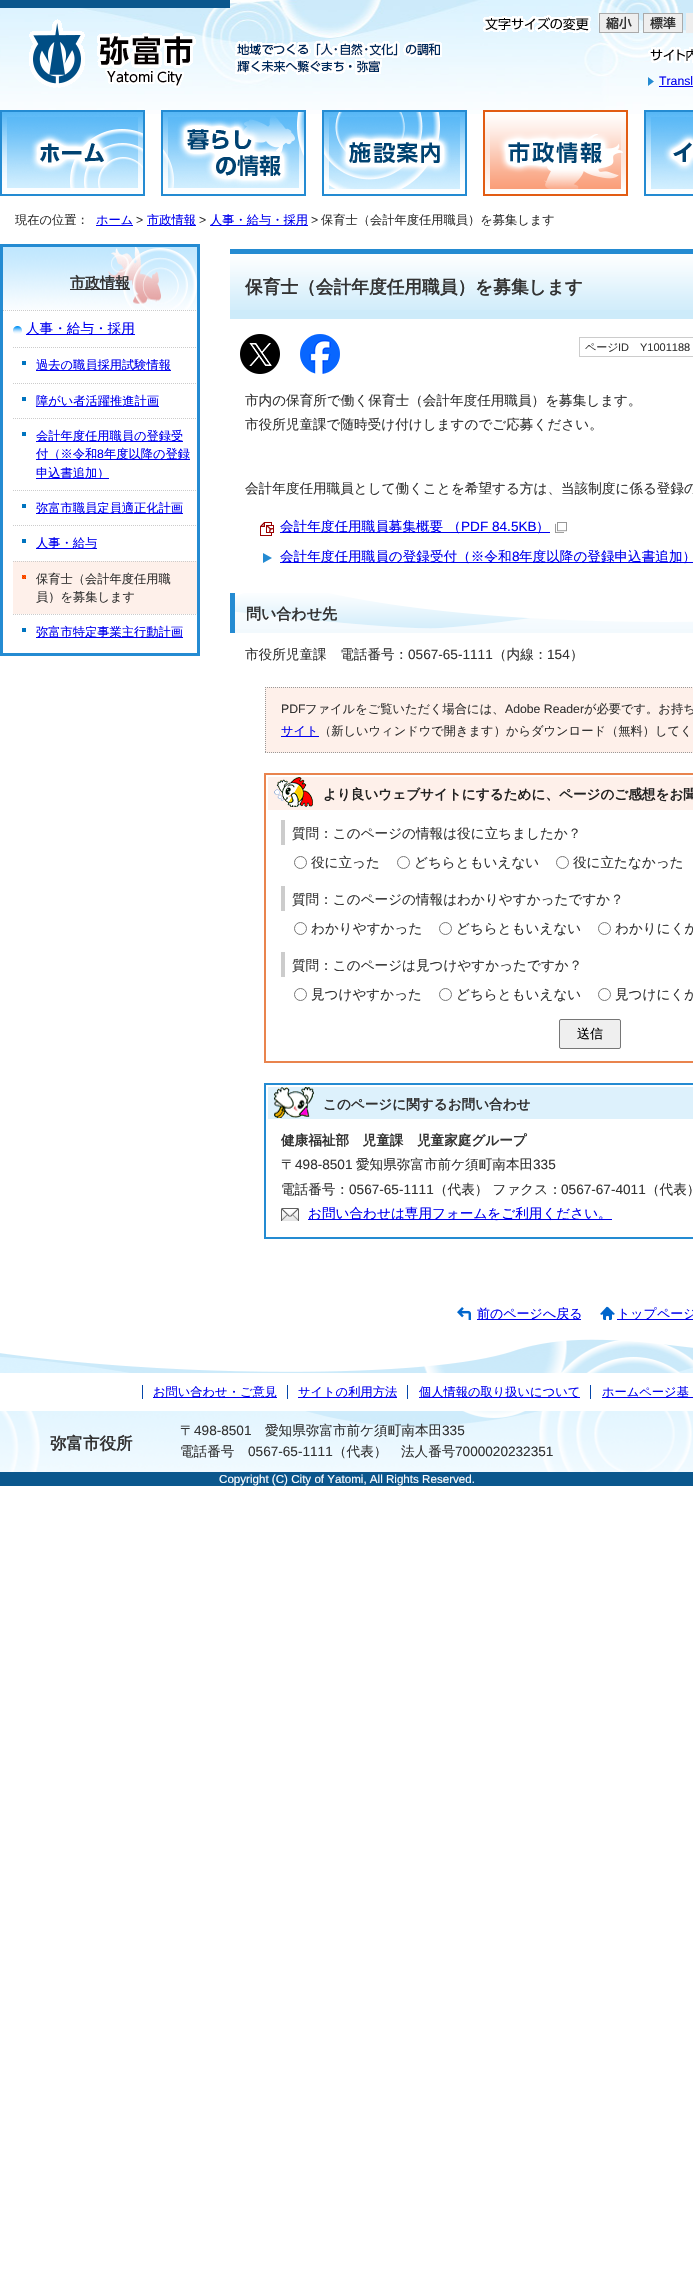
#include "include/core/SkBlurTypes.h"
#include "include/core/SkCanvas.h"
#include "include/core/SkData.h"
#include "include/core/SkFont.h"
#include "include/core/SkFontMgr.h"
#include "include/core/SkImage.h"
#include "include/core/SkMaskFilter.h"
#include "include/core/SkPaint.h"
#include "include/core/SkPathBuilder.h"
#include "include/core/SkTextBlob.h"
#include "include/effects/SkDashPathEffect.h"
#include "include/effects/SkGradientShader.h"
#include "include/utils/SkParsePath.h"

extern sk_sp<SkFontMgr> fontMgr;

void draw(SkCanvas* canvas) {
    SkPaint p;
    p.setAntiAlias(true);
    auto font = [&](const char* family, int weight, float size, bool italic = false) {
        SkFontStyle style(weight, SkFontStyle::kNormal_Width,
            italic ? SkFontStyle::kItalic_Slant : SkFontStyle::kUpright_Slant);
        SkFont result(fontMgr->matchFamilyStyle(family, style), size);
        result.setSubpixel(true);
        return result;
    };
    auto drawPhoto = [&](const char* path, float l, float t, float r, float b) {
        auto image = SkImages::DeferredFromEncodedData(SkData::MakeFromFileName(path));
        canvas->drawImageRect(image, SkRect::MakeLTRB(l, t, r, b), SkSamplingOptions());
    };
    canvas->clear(0xFFFFFFFF);
    drawPhoto("media/1.png", 0, 0, 693, 114);
    p.setColor(0xFF0B578D);
    canvas->drawRect(SkRect::MakeLTRB(0, 0, 230, 8), p);
    drawPhoto("media/2.png", 29, 19, 196, 88);
    drawPhoto("media/3.png", 235, 41, 442, 75);
    drawPhoto("media/4.png", 483, 15, 591, 33);
    drawPhoto("media/5.png", 599, 13, 639, 33);
    drawPhoto("media/6.png", 643, 13, 683, 33);
    p.setColor(0xFFEEEEEE);
    canvas->drawRect(SkRect::MakeLTRB(686, 13, 693, 33), p);
    drawPhoto("media/7.png", 648, 47, 693, 63);
    drawPhoto("media/8.png", 648, 77, 654, 86);
    auto font1 = font("Liberation Sans", 400, 12.25f);
    p.setColor(0xFF0000EE);
    canvas->drawString("Transl", 659, 85, font1, p);
    canvas->drawRect(SkRect::MakeLTRB(659, 86, 693, 87), p);
    drawPhoto("media/9.png", 0, 110, 145, 196);
    drawPhoto("media/10.png", 161, 110, 306, 196);
    drawPhoto("media/11.png", 322, 110, 467, 196);
    drawPhoto("media/12.png", 483, 110, 628, 196);
    drawPhoto("media/13.png", 644, 110, 693, 196);
    auto font2 = font("WenQuanYi Zen Hei", 500, 12.25f);
    p.setColor(0xFF333333);
    canvas->drawString("現在の位置：", 15, 224, font2, p);
    p.setColor(0xFF0000EE);
    canvas->drawRect(SkRect::MakeLTRB(96, 225, 133, 226), p);
    canvas->drawString("ホーム", 96, 224, font2, p);
    p.setColor(0xFF333333);
    canvas->drawString(">", 136, 224, font1, p);
    p.setColor(0xFF0000EE);
    canvas->drawRect(SkRect::MakeLTRB(147, 225, 196, 226), p);
    canvas->drawString("市政情報", 147, 224, font2, p);
    p.setColor(0xFF333333);
    canvas->drawString(">", 199, 224, font1, p);
    p.setColor(0xFF0000EE);
    canvas->drawRect(SkRect::MakeLTRB(210, 225, 308, 226), p);
    canvas->drawString("人事・給与・採用", 210, 224, font2, p);
    p.setColor(0xFF333333);
    canvas->drawString(">", 311, 224, font1, p);
    canvas->drawString("保育士（会計年度任用職員）を募集します", 321, 224, font2, p);
    p.setStyle(SkPaint::kStroke_Style);
    p.setStrokeWidth(3);
    p.setColor(0xFF248BD2);
    canvas->drawRect(SkRect::MakeLTRB(1.5f, 245.5f, 198.5f, 654.5f), p);
    drawPhoto("media/14.png", 3, 247, 197, 310);
    p.setStyle(SkPaint::kFill_Style);
    p.setColor(0xFF333333);
    canvas->drawRect(SkRect::MakeLTRB(70, 289, 130, 290), p);
    auto font3 = font("WenQuanYi Zen Hei", 700, 15);
    canvas->drawString("市政情報", 70, 288, font3, p);
    drawPhoto("media/15.png", 13, 326, 22, 334);
    p.setStyle(SkPaint::kStroke_Style);
    p.setStrokeWidth(1);
    p.setColor(0xFFCCCCCC);
    p.setPathEffect(SkDashPathEffect::Make({{1, 1}}, 0));
    canvas->drawPath(SkPathBuilder().moveTo(3, 310.5f).lineTo(197, 310.5f).detach(), p);
    p.setPathEffect(nullptr);
    p.setStyle(SkPaint::kFill_Style);
    p.setColor(0xFF0000EE);
    canvas->drawRect(SkRect::MakeLTRB(26, 334, 135, 335), p);
    auto font4 = font("WenQuanYi Zen Hei", 500, 13.6f);
    canvas->drawString("人事・給与・採用", 26, 333, font4, p);
    p.setColor(0xFF0074BF);
    canvas->drawRect(SkRect::MakeLTRB(22, 361, 26, 365), p);
    p.setStyle(SkPaint::kStroke_Style);
    p.setColor(0xFFCCCCCC);
    p.setPathEffect(SkDashPathEffect::Make({{1, 1}}, 0));
    canvas->drawPath(SkPathBuilder().moveTo(13, 347.5f).lineTo(197, 347.5f).detach(), p);
    p.setPathEffect(nullptr);
    p.setStyle(SkPaint::kFill_Style);
    p.setColor(0xFF0000EE);
    canvas->drawRect(SkRect::MakeLTRB(36, 370, 171, 371), p);
    canvas->drawString("過去の職員採用試験情報", 36, 369, font2, p);
    p.setColor(0xFF0074BF);
    canvas->drawRect(SkRect::MakeLTRB(22, 397, 26, 401), p);
    p.setStyle(SkPaint::kStroke_Style);
    p.setColor(0xFFCCCCCC);
    p.setPathEffect(SkDashPathEffect::Make({{1, 1}}, 0));
    canvas->drawPath(SkPathBuilder().moveTo(13, 383.5f).lineTo(197, 383.5f).detach(), p);
    p.setPathEffect(nullptr);
    p.setStyle(SkPaint::kFill_Style);
    p.setColor(0xFF0000EE);
    canvas->drawRect(SkRect::MakeLTRB(36, 406, 159, 407), p);
    canvas->drawString("障がい者活躍推進計画", 36, 405, font2, p);
    p.setColor(0xFF0074BF);
    canvas->drawRect(SkRect::MakeLTRB(22, 432, 26, 436), p);
    p.setStyle(SkPaint::kStroke_Style);
    p.setColor(0xFFCCCCCC);
    p.setPathEffect(SkDashPathEffect::Make({{1, 1}}, 0));
    canvas->drawPath(SkPathBuilder().moveTo(13, 418.5f).lineTo(197, 418.5f).detach(), p);
    p.setPathEffect(nullptr);
    p.setStyle(SkPaint::kFill_Style);
    p.setColor(0xFF0000EE);
    canvas->drawRect(SkRect::MakeLTRB(36, 441, 183, 442), p);
    canvas->drawString("会計年度任用職員の登録受", 36, 440, font2, p);
    canvas->drawRect(SkRect::MakeLTRB(36, 459, 190, 460), p);
    canvas->drawString("付（※令和", 36, 458, font2, p);
    canvas->drawString("8", 97, 458, font1, p);
    canvas->drawString("年度以降の登録", 104, 458, font2, p);
    canvas->drawRect(SkRect::MakeLTRB(36, 478, 109, 479), p);
    canvas->drawString("申込書追加）", 36, 477, font2, p);
    p.setColor(0xFF0074BF);
    canvas->drawRect(SkRect::MakeLTRB(22, 504, 26, 508), p);
    p.setStyle(SkPaint::kStroke_Style);
    p.setColor(0xFFCCCCCC);
    p.setPathEffect(SkDashPathEffect::Make({{1, 1}}, 0));
    canvas->drawPath(SkPathBuilder().moveTo(13, 490.5f).lineTo(197, 490.5f).detach(), p);
    p.setPathEffect(nullptr);
    p.setStyle(SkPaint::kFill_Style);
    p.setColor(0xFF0000EE);
    canvas->drawRect(SkRect::MakeLTRB(36, 513, 183, 514), p);
    canvas->drawString("弥富市職員定員適正化計画", 36, 512, font2, p);
    p.setColor(0xFF0074BF);
    canvas->drawRect(SkRect::MakeLTRB(22, 539, 26, 543), p);
    p.setStyle(SkPaint::kStroke_Style);
    p.setColor(0xFFCCCCCC);
    p.setPathEffect(SkDashPathEffect::Make({{1, 1}}, 0));
    canvas->drawPath(SkPathBuilder().moveTo(13, 525.5f).lineTo(197, 525.5f).detach(), p);
    p.setPathEffect(nullptr);
    p.setStyle(SkPaint::kFill_Style);
    p.setColor(0xFF0000EE);
    canvas->drawRect(SkRect::MakeLTRB(36, 548, 97, 549), p);
    canvas->drawString("人事・給与", 36, 547, font2, p);
    p.setColor(0xFFFEF0EA);
    canvas->drawRect(SkRect::MakeLTRB(13, 561, 197, 614), p);
    drawPhoto("media/16.png", 22, 575, 26, 579);
    p.setStyle(SkPaint::kStroke_Style);
    p.setColor(0xFFCCCCCC);
    p.setPathEffect(SkDashPathEffect::Make({{1, 1}}, 0));
    canvas->drawPath(SkPathBuilder().moveTo(13, 561.5f).lineTo(197, 561.5f).detach(), p);
    p.setPathEffect(nullptr);
    p.setStyle(SkPaint::kFill_Style);
    p.setColor(0xFF333333);
    canvas->drawString("保育士（会計年度任用職", 36, 583, font2, p);
    canvas->drawString("員）を募集します", 36, 601, font2, p);
    p.setColor(0xFF0074BF);
    canvas->drawRect(SkRect::MakeLTRB(22, 628, 26, 632), p);
    p.setStyle(SkPaint::kStroke_Style);
    p.setColor(0xFFCCCCCC);
    p.setPathEffect(SkDashPathEffect::Make({{1, 1}}, 0));
    canvas->drawPath(SkPathBuilder().moveTo(13, 614.5f).lineTo(197, 614.5f).detach(), p);
    p.setPathEffect(nullptr);
    p.setStyle(SkPaint::kFill_Style);
    p.setColor(0xFF0000EE);
    canvas->drawRect(SkRect::MakeLTRB(36, 637, 183, 638), p);
    canvas->drawString("弥富市特定事業主行動計画", 36, 636, font2, p);
    p.setColor(0xFFCDEBFA);
    canvas->drawRect(SkRect::MakeLTRB(230, 310, 693, 319), p);
    drawPhoto("media/17.png", 230, 254, 693, 310);
    p.setColor(0xFF248BD2);
    canvas->drawRect(SkRect::MakeLTRB(230, 249, 693, 254), p);
    auto font5 = font("WenQuanYi Zen Hei", 700, 17.7f);
    p.setColor(0xFF333333);
    canvas->drawString("保育士（会計年度任用職員）を募集します", 245, 293, font5, p);
    drawPhoto("media/18.png", 240, 334, 280, 374);
    drawPhoto("media/19.png", 300, 334, 340, 374);
    p.setStyle(SkPaint::kStroke_Style);
    p.setColor(0xFFCCCCCC);
    canvas->drawRect(SkRect::MakeLTRB(579.5f, 337.5f, 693.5f, 356.5f), p);
    auto font6 = font("WenQuanYi Zen Hei", 500, 11);
    p.setStyle(SkPaint::kFill_Style);
    p.setColor(0xFF333333);
    canvas->drawString("ページ", 585, 351, font6, p);
    auto font7 = font("Liberation Sans", 400, 11);
    canvas->drawString("ID", 618, 351, font7, p);
    canvas->drawString("Y1001188", 640, 351, font7, p);
    {
        const struct { const char* s; float x, y; } items[] = {
            {"市内の保育所で働く保育士（会計年度任用職員）を募集します。", 245, 405},
            {"市役所児童課で随時受け付けしますのでご応募ください。", 245, 429},
            {"会計年度任用職員として働くことを希望する方は、当該制度に係る登録の", 245, 493},
        };
        for (auto [s, x, y] : items) {
            canvas->drawString(s, x, y, font4, p);
        }
    }
    drawPhoto("media/20.png", 260, 522, 274, 536);
    p.setColor(0xFF0000EE);
    canvas->drawRect(SkRect::MakeLTRB(280, 532, 550, 533), p);
    canvas->drawString("会計年度任用職員募集概要 （", 280, 531, font4, p);
    auto font8 = font("Liberation Sans", 400, 13.6f);
    canvas->drawString("PDF 84.5KB", 461, 531, font8, p);
    canvas->drawString("）", 536, 531, font4, p);
    drawPhoto("media/21.png", 555, 522, 567, 533);
    drawPhoto("media/22.png", 263, 553, 272, 563);
    canvas->drawRect(SkRect::MakeLTRB(280, 562, 693, 563), p);
    canvas->drawString("会計年度任用職員の登録受付（※令和", 280, 561, font4, p);
    canvas->drawString("8", 512, 561, font8, p);
    canvas->drawString("年度以降の登録申込書追加）", 519, 561, font4, p);
    p.setColor(0xFFF2F9FD);
    canvas->drawRect(SkRect::MakeLTRB(235, 629, 693, 633), p);
    drawPhoto("media/23.png", 235, 593, 693, 629);
    p.setColor(0xFF248BD2);
    canvas->drawRect(SkRect::MakeLTRB(230, 593, 235, 633), p);
    p.setColor(0xFF333333);
    canvas->drawString("問い合わせ先", 246, 619, font3, p);
    canvas->drawString("市役所児童課　電話番号：", 245, 659, font4, p);
    canvas->drawString("0567-65-1111", 408, 659, font8, p);
    canvas->drawString("（内線：", 493, 659, font4, p);
    canvas->drawString("154", 547, 659, font8, p);
    canvas->drawString("）", 570, 659, font4, p);
    p.setColor(0xFFFEF0EA);
    canvas->drawRect(SkRect::MakeLTRB(265, 687, 693, 753), p);
    p.setStyle(SkPaint::kStroke_Style);
    p.setColor(0xFF999999);
    p.setPathEffect(SkDashPathEffect::Make({{1, 1}}, 0));
    canvas->drawPath(SkPathBuilder().moveTo(265, 687.5f).lineTo(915, 687.5f).detach(), p);
    p.setPathEffect(nullptr);
    p.setPathEffect(SkDashPathEffect::Make({{1, 1}}, 0));
    canvas->drawPath(SkPathBuilder().moveTo(265, 752.5f).lineTo(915, 752.5f).detach(), p);
    p.setPathEffect(nullptr);
    p.setPathEffect(SkDashPathEffect::Make({{1, 1}}, 0));
    canvas->drawPath(SkPathBuilder().moveTo(265.5f, 687).lineTo(265.5f, 753).detach(), p);
    p.setPathEffect(nullptr);
    p.setStyle(SkPaint::kFill_Style);
    p.setColor(0xFF333333);
    canvas->drawString("PDF", 281, 713, font1, p);
    canvas->drawString("ファイルをご覧いただく場合には、", 305, 713, font2, p);
    canvas->drawString("Adobe Reader", 505, 713, font1, p);
    canvas->drawString("が必要です。お持ち", 584, 713, font2, p);
    p.setColor(0xFF0000EE);
    canvas->drawRect(SkRect::MakeLTRB(281, 736, 319, 737), p);
    canvas->drawString("サイト", 281, 735, font2, p);
    p.setColor(0xFF333333);
    canvas->drawString("（新しいウィンドウで開きます）からダウンロード（無料）してく", 319, 735, font2, p);
    p.setStyle(SkPaint::kStroke_Style);
    p.setStrokeWidth(2);
    p.setColor(0xFFE9844E);
    canvas->drawRect(SkRect::MakeLTRB(265, 774, 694, 1062), p);
    p.setStyle(SkPaint::kFill_Style);
    p.setColor(0xFFFEF0EA);
    canvas->drawRect(SkRect::MakeLTRB(268, 777, 693, 810), p);
    drawPhoto("media/24.png", 274, 777, 313, 807);
    auto font9 = font("WenQuanYi Zen Hei", 700, 13.6f);
    p.setColor(0xFF222222);
    canvas->drawString("より良いウェブサイトにするために、ページのご感想をお聞", 323, 799, font9, p);
    p.setColor(0xFFCCCCCC);
    canvas->drawRect(SkRect::MakeLTRB(281, 820, 285, 845), p);
    p.setColor(0xFF333333);
    canvas->drawString("質問：このページの情報は役に立ちましたか？", 292, 838, font4, p);
    p.setStyle(SkPaint::kStroke_Style);
    p.setStrokeWidth(1);
    p.setColor(0xFF767676);
    canvas->drawCircle(300.5f, 862.5f, 6, p);
    p.setStyle(SkPaint::kFill_Style);
    p.setColor(0xFF333333);
    canvas->drawString("役に立った", 311, 867, font4, p);
    p.setStyle(SkPaint::kStroke_Style);
    p.setColor(0xFF767676);
    canvas->drawCircle(403.5f, 862.5f, 6, p);
    p.setStyle(SkPaint::kFill_Style);
    p.setColor(0xFF333333);
    canvas->drawString("どちらともいえない", 414, 867, font4, p);
    p.setStyle(SkPaint::kStroke_Style);
    p.setColor(0xFF767676);
    canvas->drawCircle(562.5f, 862.5f, 6, p);
    p.setStyle(SkPaint::kFill_Style);
    p.setColor(0xFF333333);
    canvas->drawString("役に立たなかった", 573, 867, font4, p);
    p.setColor(0xFFCCCCCC);
    canvas->drawRect(SkRect::MakeLTRB(281, 886, 285, 911), p);
    p.setColor(0xFF333333);
    canvas->drawString("質問：このページの情報はわかりやすかったですか？", 292, 904, font4, p);
    p.setStyle(SkPaint::kStroke_Style);
    p.setColor(0xFF767676);
    canvas->drawCircle(300.5f, 928.5f, 6, p);
    p.setStyle(SkPaint::kFill_Style);
    p.setColor(0xFF333333);
    canvas->drawString("わかりやすかった", 311, 933, font4, p);
    p.setStyle(SkPaint::kStroke_Style);
    p.setColor(0xFF767676);
    canvas->drawCircle(445.5f, 928.5f, 6, p);
    p.setStyle(SkPaint::kFill_Style);
    p.setColor(0xFF333333);
    canvas->drawString("どちらともいえない", 456, 933, font4, p);
    p.setStyle(SkPaint::kStroke_Style);
    p.setColor(0xFF767676);
    canvas->drawCircle(604.5f, 928.5f, 6, p);
    p.setStyle(SkPaint::kFill_Style);
    p.setColor(0xFF333333);
    canvas->drawString("わかりにくか", 615, 933, font4, p);
    p.setColor(0xFFCCCCCC);
    canvas->drawRect(SkRect::MakeLTRB(281, 952, 285, 977), p);
    p.setColor(0xFF333333);
    canvas->drawString("質問：このページは見つけやすかったですか？", 292, 970, font4, p);
    p.setStyle(SkPaint::kStroke_Style);
    p.setColor(0xFF767676);
    canvas->drawCircle(300.5f, 994.5f, 6, p);
    p.setStyle(SkPaint::kFill_Style);
    p.setColor(0xFF333333);
    canvas->drawString("見つけやすかった", 311, 999, font4, p);
    p.setStyle(SkPaint::kStroke_Style);
    p.setColor(0xFF767676);
    canvas->drawCircle(445.5f, 994.5f, 6, p);
    p.setStyle(SkPaint::kFill_Style);
    p.setColor(0xFF333333);
    canvas->drawString("どちらともいえない", 456, 999, font4, p);
    p.setStyle(SkPaint::kStroke_Style);
    p.setColor(0xFF767676);
    canvas->drawCircle(604.5f, 994.5f, 6, p);
    p.setStyle(SkPaint::kFill_Style);
    p.setColor(0xFF333333);
    canvas->drawString("見つけにくか", 615, 999, font4, p);
    p.setColor(0xFFEFEFEF);
    canvas->drawRoundRect(SkRect::MakeLTRB(559.5f, 1019.5f, 620.5f, 1048.5f), 1.5f, 1.5f, p);
    p.setStyle(SkPaint::kStroke_Style);
    p.setColor(0xFF767676);
    canvas->drawRoundRect(SkRect::MakeLTRB(559.5f, 1019.5f, 620.5f, 1048.5f), 1.5f, 1.5f, p);
    auto font10 = font("WenQuanYi Zen Hei", 500, 13);
    p.setStyle(SkPaint::kFill_Style);
    p.setColor(0xFF000000);
    canvas->drawString("送信", 577, 1038, font10, p);
    p.setStyle(SkPaint::kStroke_Style);
    p.setStrokeWidth(2);
    p.setColor(0xFF248BD2);
    canvas->drawRect(SkRect::MakeLTRB(265, 1084, 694, 1238), p);
    p.setStyle(SkPaint::kFill_Style);
    p.setColor(0xFFDDF1FC);
    canvas->drawRect(SkRect::MakeLTRB(268, 1087, 693, 1119), p);
    drawPhoto("media/25.png", 274, 1087, 314, 1118);
    p.setColor(0xFF333333);
    canvas->drawString("このページに関するお問い合わせ", 323, 1109, font9, p);
    canvas->drawString("健康福祉部　児童課　児童家庭グループ", 281, 1145, font9, p);
    canvas->drawString("〒", 281, 1169, font4, p);
    canvas->drawString("498-8501", 295, 1169, font8, p);
    canvas->drawString("愛知県弥富市前ケ須町南本田", 356, 1169, font4, p);
    canvas->drawString("335", 533, 1169, font8, p);
    canvas->drawString("電話番号：", 281, 1194, font4, p);
    canvas->drawString("0567-65-1111", 349, 1194, font8, p);
    canvas->drawString("（代表） ファクス：", 434, 1194, font4, p);
    canvas->drawString("0567-67-4011", 561, 1194, font8, p);
    canvas->drawString("（代表）", 646, 1194, font4, p);
    drawPhoto("media/26.png", 281, 1208, 299, 1221);
    p.setColor(0xFF0000EE);
    canvas->drawRect(SkRect::MakeLTRB(308, 1219, 612, 1220), p);
    canvas->drawString("お問い合わせは専用フォームをご利用ください。", 308, 1218, font4, p);
    drawPhoto("media/27.png", 457, 1307, 471, 1320);
    canvas->drawRect(SkRect::MakeLTRB(477, 1319, 581, 1320), p);
    canvas->drawString("前のページへ戻る", 477, 1318, font10, p);
    drawPhoto("media/28.png", 600, 1306, 615, 1320);
    canvas->drawRect(SkRect::MakeLTRB(617, 1319, 693, 1320), p);
    canvas->drawString("トップページ", 617, 1318, font10, p);
    drawPhoto("media/29.png", 0, 1339, 693, 1472);
    {
        const struct { float l, t, r, b; SkColor color; } items[] = {
            {0, 1373, 693, 1411, 0xFFFFFFFF},
            {287, 1385, 288, 1399, 0xFF0547A9},
            {142, 1385, 143, 1399, 0xFF0547A9},
            {153, 1397, 277, 1398, 0xFF0000EE},
        };
        for (auto [l, t, r, b, color] : items) {
            p.setColor(color);
            canvas->drawRect(SkRect::MakeLTRB(l, t, r, b), p);
        }
    }
    canvas->drawString("お問い合わせ・ご意見", 153, 1396, font2, p);
    p.setColor(0xFF0547A9);
    canvas->drawRect(SkRect::MakeLTRB(407, 1385, 408, 1399), p);
    p.setColor(0xFF0000EE);
    canvas->drawRect(SkRect::MakeLTRB(298, 1397, 397, 1398), p);
    canvas->drawString("サイトの利用方法", 298, 1396, font2, p);
    p.setColor(0xFF0547A9);
    canvas->drawRect(SkRect::MakeLTRB(590, 1385, 591, 1399), p);
    p.setColor(0xFF0000EE);
    canvas->drawRect(SkRect::MakeLTRB(419, 1397, 580, 1398), p);
    canvas->drawString("個人情報の取り扱いについて", 419, 1396, font2, p);
    canvas->drawRect(SkRect::MakeLTRB(602, 1397, 693, 1398), p);
    canvas->drawString("ホームページ基", 602, 1396, font2, p);
    auto font11 = font("WenQuanYi Zen Hei", 700, 16.5f);
    p.setColor(0xFF333333);
    canvas->drawString("弥富市役所", 50, 1449, font11, p);
    canvas->drawString("〒", 180, 1435, font4, p);
    canvas->drawString("498-8501", 194, 1435, font8, p);
    canvas->drawString("愛知県弥富市前ケ須町南本田", 265, 1435, font4, p);
    canvas->drawString("335", 442, 1435, font8, p);
    canvas->drawString("電話番号", 180, 1456, font4, p);
    canvas->drawString("0567-65-1111", 248, 1456, font8, p);
    canvas->drawString("（代表）　法人番号", 333, 1456, font4, p);
    canvas->drawString("7000020232351", 455, 1456, font8, p);
    p.setColor(0xFF0B578D);
    canvas->drawRect(SkRect::MakeLTRB(0, 1472, 693, 1486), p);
    auto font12 = font("Liberation Sans", 400, 11.6f);
    p.setColor(0xFFFFFFFF);
    canvas->drawString("Copyright (C) City of Yatomi, All Rights Reserved.", 219, 1483, font12, p);
}
